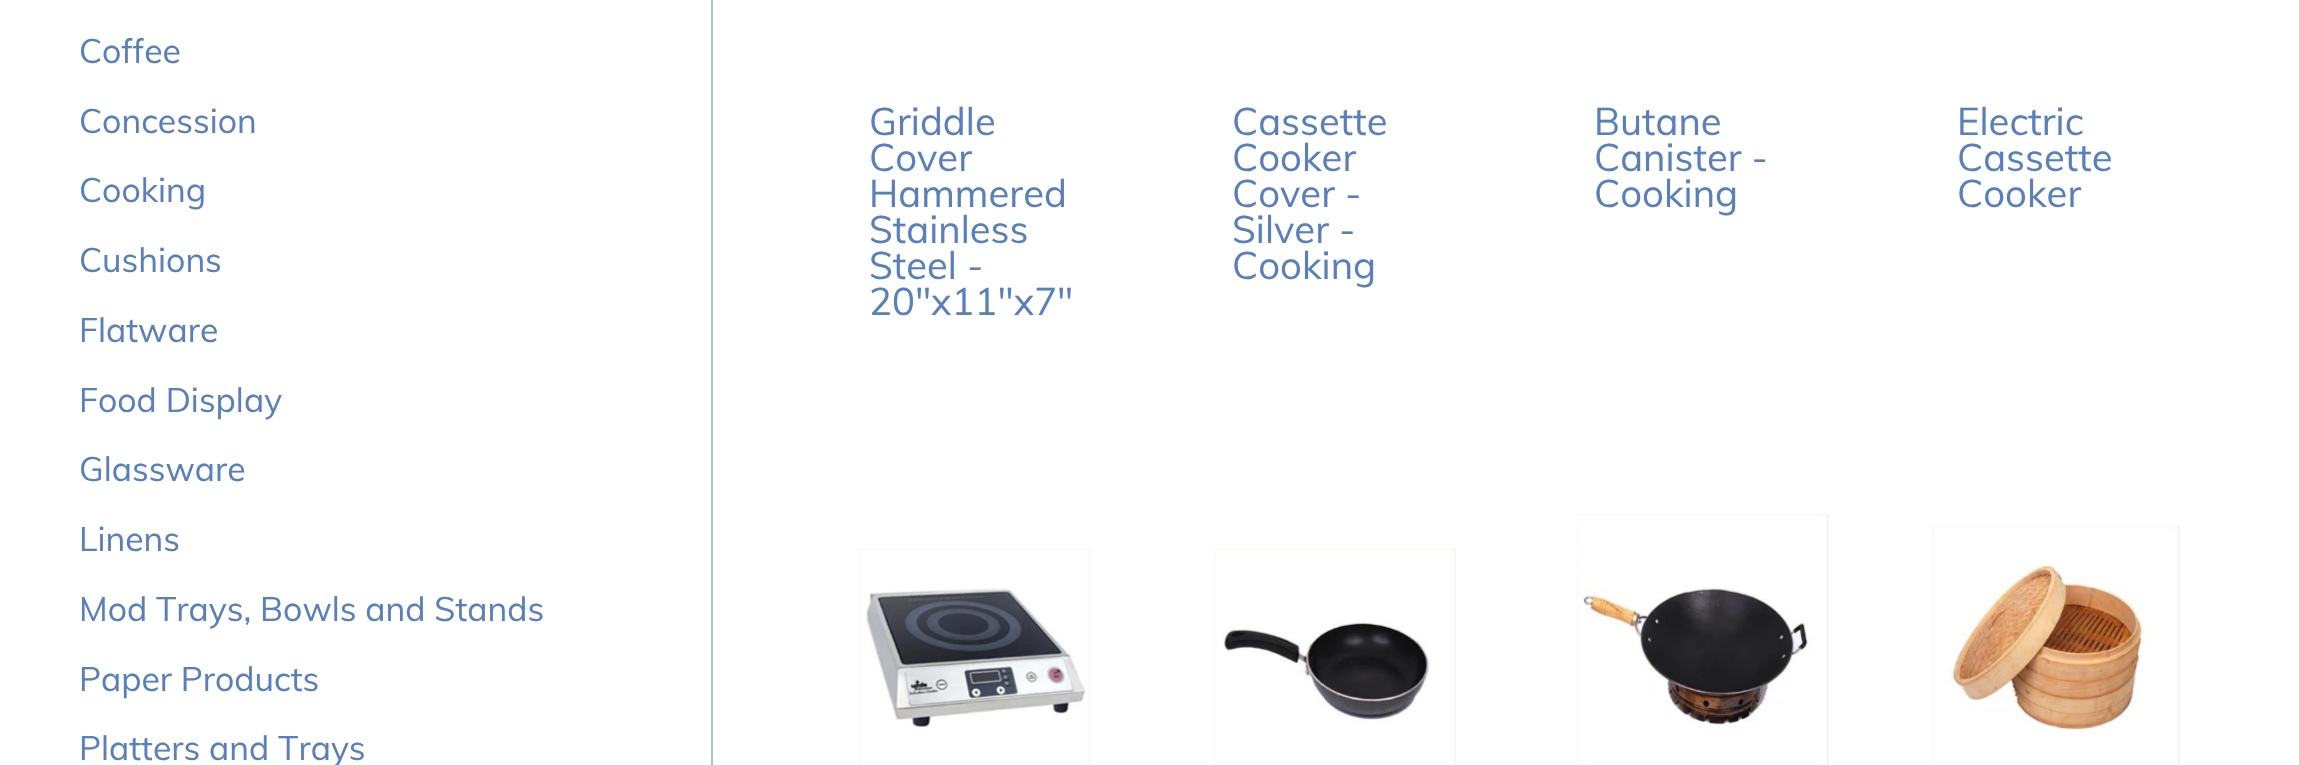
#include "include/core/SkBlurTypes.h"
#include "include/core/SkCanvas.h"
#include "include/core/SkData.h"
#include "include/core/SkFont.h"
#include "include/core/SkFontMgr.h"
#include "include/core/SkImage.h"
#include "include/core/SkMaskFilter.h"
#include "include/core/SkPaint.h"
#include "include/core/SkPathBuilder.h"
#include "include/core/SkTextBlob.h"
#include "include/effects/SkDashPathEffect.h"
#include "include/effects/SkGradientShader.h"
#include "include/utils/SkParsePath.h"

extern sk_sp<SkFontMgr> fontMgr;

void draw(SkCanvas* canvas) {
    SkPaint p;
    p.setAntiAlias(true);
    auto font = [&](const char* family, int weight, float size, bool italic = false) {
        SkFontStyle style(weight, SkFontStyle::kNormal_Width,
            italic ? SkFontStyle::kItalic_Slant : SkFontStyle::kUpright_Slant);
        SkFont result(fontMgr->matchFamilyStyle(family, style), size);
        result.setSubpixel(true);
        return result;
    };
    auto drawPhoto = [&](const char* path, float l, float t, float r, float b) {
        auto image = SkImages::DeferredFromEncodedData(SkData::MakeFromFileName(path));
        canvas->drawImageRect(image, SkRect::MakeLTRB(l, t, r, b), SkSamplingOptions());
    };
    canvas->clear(0xFFFFFFFF);
    p.setColor(0xFFADBEDB);
    canvas->drawRect(SkRect::MakeLTRB(711, 0, 713, 765), p);
    auto font1 = font("Muli", 400, 33.75f);
    p.setColor(0xFF5980BA);
    {
        const struct { const char* s; float x, y; } items[] = {
            {"Coffee", 79, 63},
            {"Concession", 79, 133},
            {"Cooking", 79, 202},
            {"Cushions", 79, 272},
            {"Flatware", 79, 342},
            {"Food Display", 79, 412},
            {"Glassware", 79, 481},
            {"Linens", 79, 551},
            {"Mod Trays, Bowls and Stands", 79, 621},
            {"Paper Products", 79, 691},
            {"Platters and Trays", 79, 760},
        };
        for (auto [s, x, y] : items) {
            canvas->drawString(s, x, y, font1, p);
        }
    }
    auto font2 = font("Muli", 400, 38.25f);
    {
        const struct { const char* s; float x, y; } items[] = {
            {"Griddle", 869, 135},
            {"Cover", 869, 171},
            {"Hammered", 869, 207},
            {"Stainless", 869, 243},
            {"Steel -", 869, 279},
            {"20\"x11\"x7\"", 869, 315},
            {"Cassette", 1232, 135},
            {"Cooker", 1232, 171},
            {"Cover -", 1232, 207},
            {"Silver -", 1232, 243},
            {"Cooking", 1232, 279},
            {"Butane", 1594, 135},
            {"Canister -", 1594, 171},
            {"Cooking", 1594, 207},
            {"Electric", 1957, 135},
            {"Cassette", 1957, 171},
            {"Cooker", 1957, 207},
        };
        for (auto [s, x, y] : items) {
            canvas->drawString(s, x, y, font2, p);
        }
    }
    drawPhoto("media/1.png", 858, 548, 1091, 765);
    drawPhoto("media/2.png", 1212, 548, 1456, 765);
    drawPhoto("media/3.png", 1575, 513, 1829, 765);
    drawPhoto("media/4.png", 1932, 524, 2180, 765);
}
